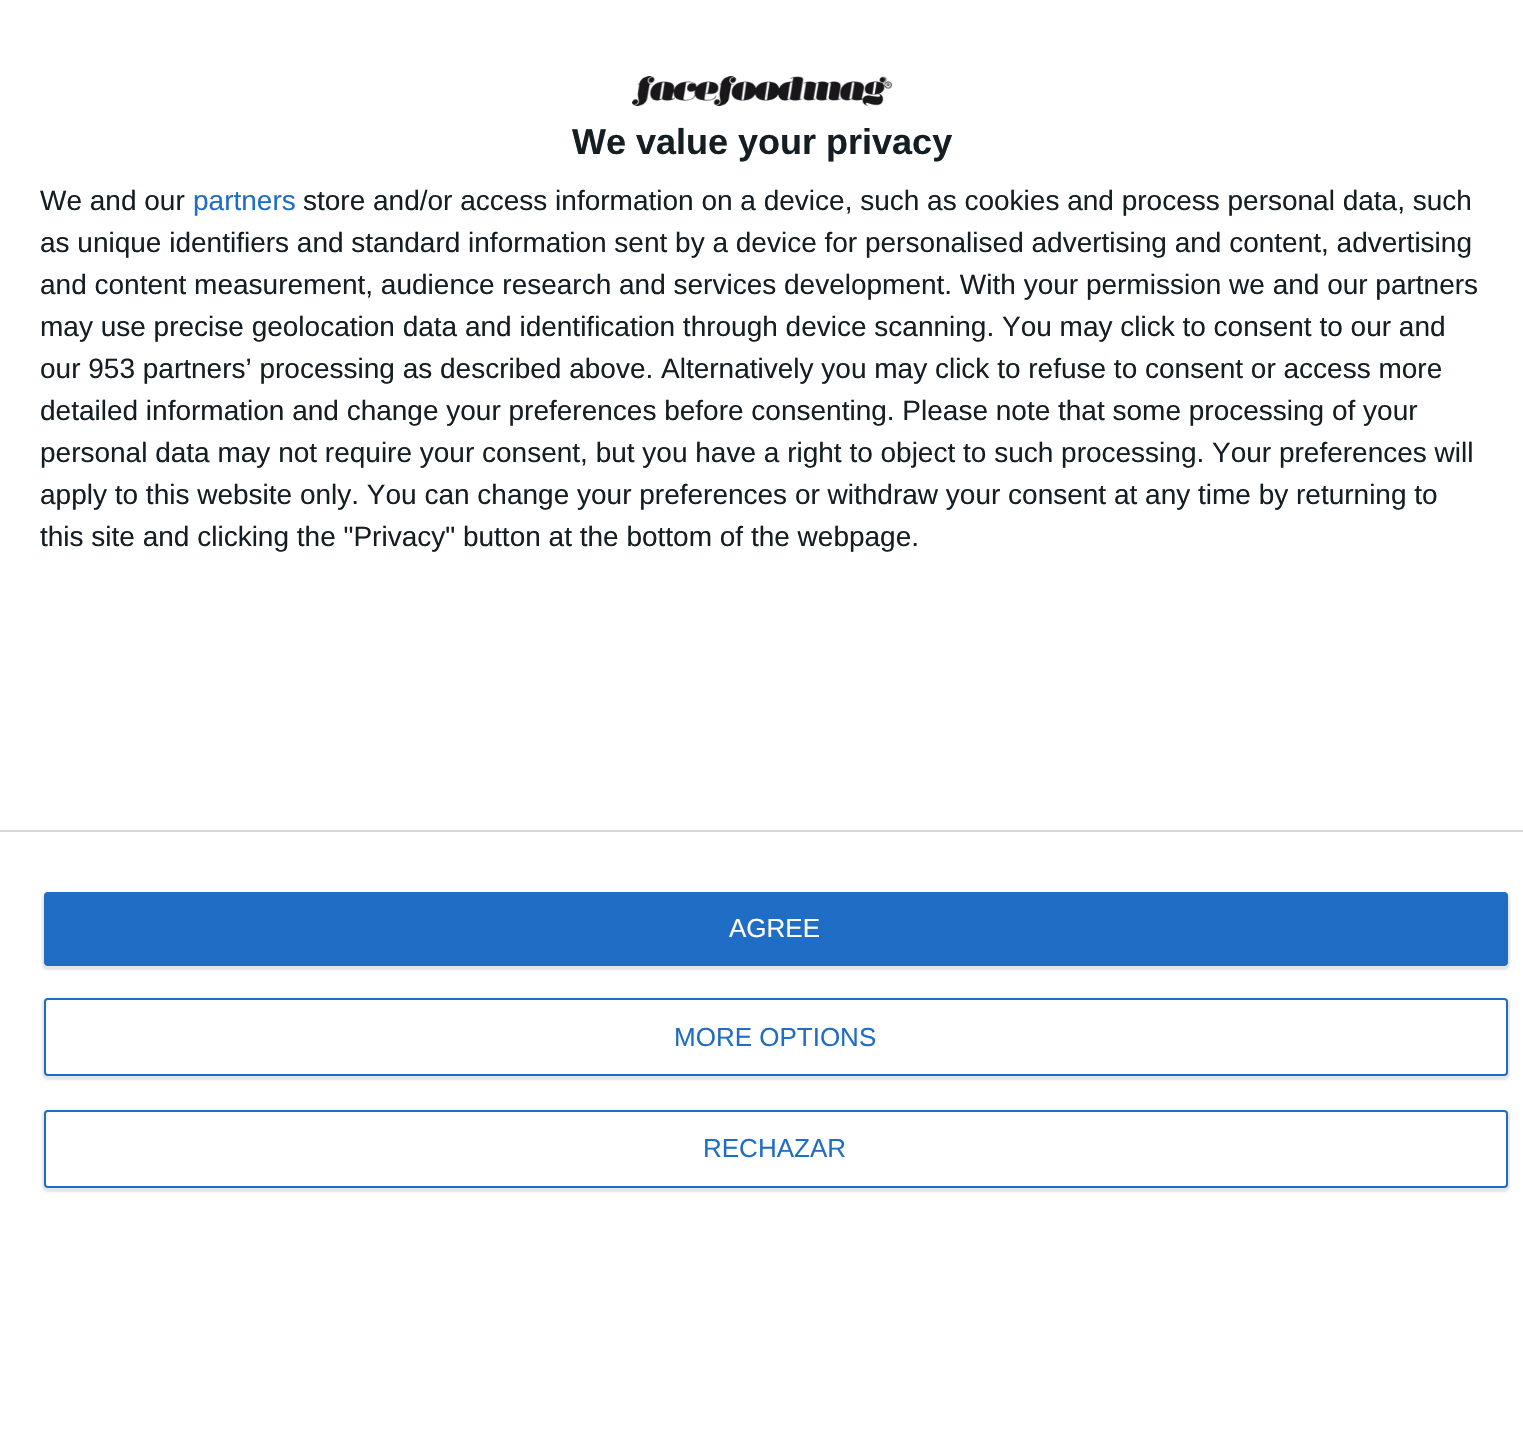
#include "include/core/SkBlurTypes.h"
#include "include/core/SkCanvas.h"
#include "include/core/SkData.h"
#include "include/core/SkFont.h"
#include "include/core/SkFontMgr.h"
#include "include/core/SkImage.h"
#include "include/core/SkMaskFilter.h"
#include "include/core/SkPaint.h"
#include "include/core/SkPathBuilder.h"
#include "include/core/SkTextBlob.h"
#include "include/effects/SkDashPathEffect.h"
#include "include/effects/SkGradientShader.h"
#include "include/utils/SkParsePath.h"

extern sk_sp<SkFontMgr> fontMgr;

void draw(SkCanvas* canvas) {
    SkPaint p;
    p.setAntiAlias(true);
    auto font = [&](const char* family, int weight, float size, bool italic = false) {
        SkFontStyle style(weight, SkFontStyle::kNormal_Width,
            italic ? SkFontStyle::kItalic_Slant : SkFontStyle::kUpright_Slant);
        SkFont result(fontMgr->matchFamilyStyle(family, style), size);
        result.setSubpixel(true);
        return result;
    };
    auto drawPhoto = [&](const char* path, float l, float t, float r, float b) {
        auto image = SkImages::DeferredFromEncodedData(SkData::MakeFromFileName(path));
        canvas->drawImageRect(image, SkRect::MakeLTRB(l, t, r, b), SkSamplingOptions());
    };
    canvas->clear(0xFFFFFFFF);
    drawPhoto("media/1.png", 632, 76, 892, 106);
    auto font1 = font("Liberation Sans", 700, 36);
    p.setColor(0xFF141E23);
    canvas->drawString("We value your privacy", 572, 154, font1, p);
    auto font2 = font("Liberation Sans", 400, 28);
    canvas->drawString("We and our", 40, 210, font2, p);
    p.setColor(0xFF206DC5);
    canvas->drawString("partners", 193, 210, font2, p);
    p.setColor(0xFF141E23);
    {
        const struct { const char* s; float x, y; } items[] = {
            {"store and/or access information on a device, such as cookies and process personal data, such", 303, 210},
            {"as unique identifiers and standard information sent by a device for personalised advertising and content, advertising", 40, 252},
            {"and content measurement, audience research and services development. With your permission we and our partners", 40, 294},
            {"may use precise geolocation data and identification through device scanning. You may click to consent to our and", 40, 336},
            {"our 953 partners’ processing as described above. Alternatively you may click to refuse to consent or access more", 40, 378},
            {"detailed information and change your preferences before consenting. Please note that some processing of your", 40, 420},
            {"personal data may not require your consent, but you have a right to object to such processing. Your preferences will", 40, 462},
            {"apply to this website only. You can change your preferences or withdraw your consent at any time by returning to", 40, 504},
            {"this site and clicking the \"Privacy\" button at the bottom of the webpage.", 40, 546},
        };
        for (auto [s, x, y] : items) {
            canvas->drawString(s, x, y, font2, p);
        }
    }
    p.setColor(0xFFD8D8D8);
    canvas->drawRect(SkRect::MakeLTRB(0, 830, 1523, 832), p);
    p.setColor(0x1A000000);
    p.setMaskFilter(SkMaskFilter::MakeBlur(kNormal_SkBlurStyle, 1));
    canvas->drawRoundRect(SkRect::MakeLTRB(42, 892, 1510, 970), 6, 6, p);
    p.setMaskFilter(nullptr);
    p.setColor(0xFF206DC5);
    canvas->drawRoundRect(SkRect::MakeLTRB(44, 892, 1508, 966), 4, 4, p);
    auto font3 = font("Liberation Sans", 400, 26);
    p.setColor(0xFFFFFFFF);
    canvas->drawString("AGREE", 729, 937, font3, p);
    p.setColor(0x1A000000);
    p.setMaskFilter(SkMaskFilter::MakeBlur(kNormal_SkBlurStyle, 1));
    canvas->drawRoundRect(SkRect::MakeLTRB(42, 998, 1510, 1080), 6, 6, p);
    p.setMaskFilter(nullptr);
    p.setColor(0xFFFFFFFF);
    canvas->drawRoundRect(SkRect::MakeLTRB(45, 999, 1507, 1075), 3, 3, p);
    p.setStyle(SkPaint::kStroke_Style);
    p.setStrokeWidth(2);
    p.setColor(0xFF206DC5);
    canvas->drawRoundRect(SkRect::MakeLTRB(45, 999, 1507, 1075), 3, 3, p);
    p.setStyle(SkPaint::kFill_Style);
    canvas->drawString("MORE OPTIONS", 674, 1046, font3, p);
    p.setColor(0x1A000000);
    p.setMaskFilter(SkMaskFilter::MakeBlur(kNormal_SkBlurStyle, 1));
    canvas->drawRoundRect(SkRect::MakeLTRB(42, 1110, 1510, 1192), 6, 6, p);
    p.setMaskFilter(nullptr);
    p.setColor(0xFFFFFFFF);
    canvas->drawRoundRect(SkRect::MakeLTRB(45, 1111, 1507, 1187), 3, 3, p);
    p.setStyle(SkPaint::kStroke_Style);
    p.setColor(0xFF206DC5);
    canvas->drawRoundRect(SkRect::MakeLTRB(45, 1111, 1507, 1187), 3, 3, p);
    p.setStyle(SkPaint::kFill_Style);
    canvas->drawString("RECHAZAR", 703, 1157, font3, p);
}
